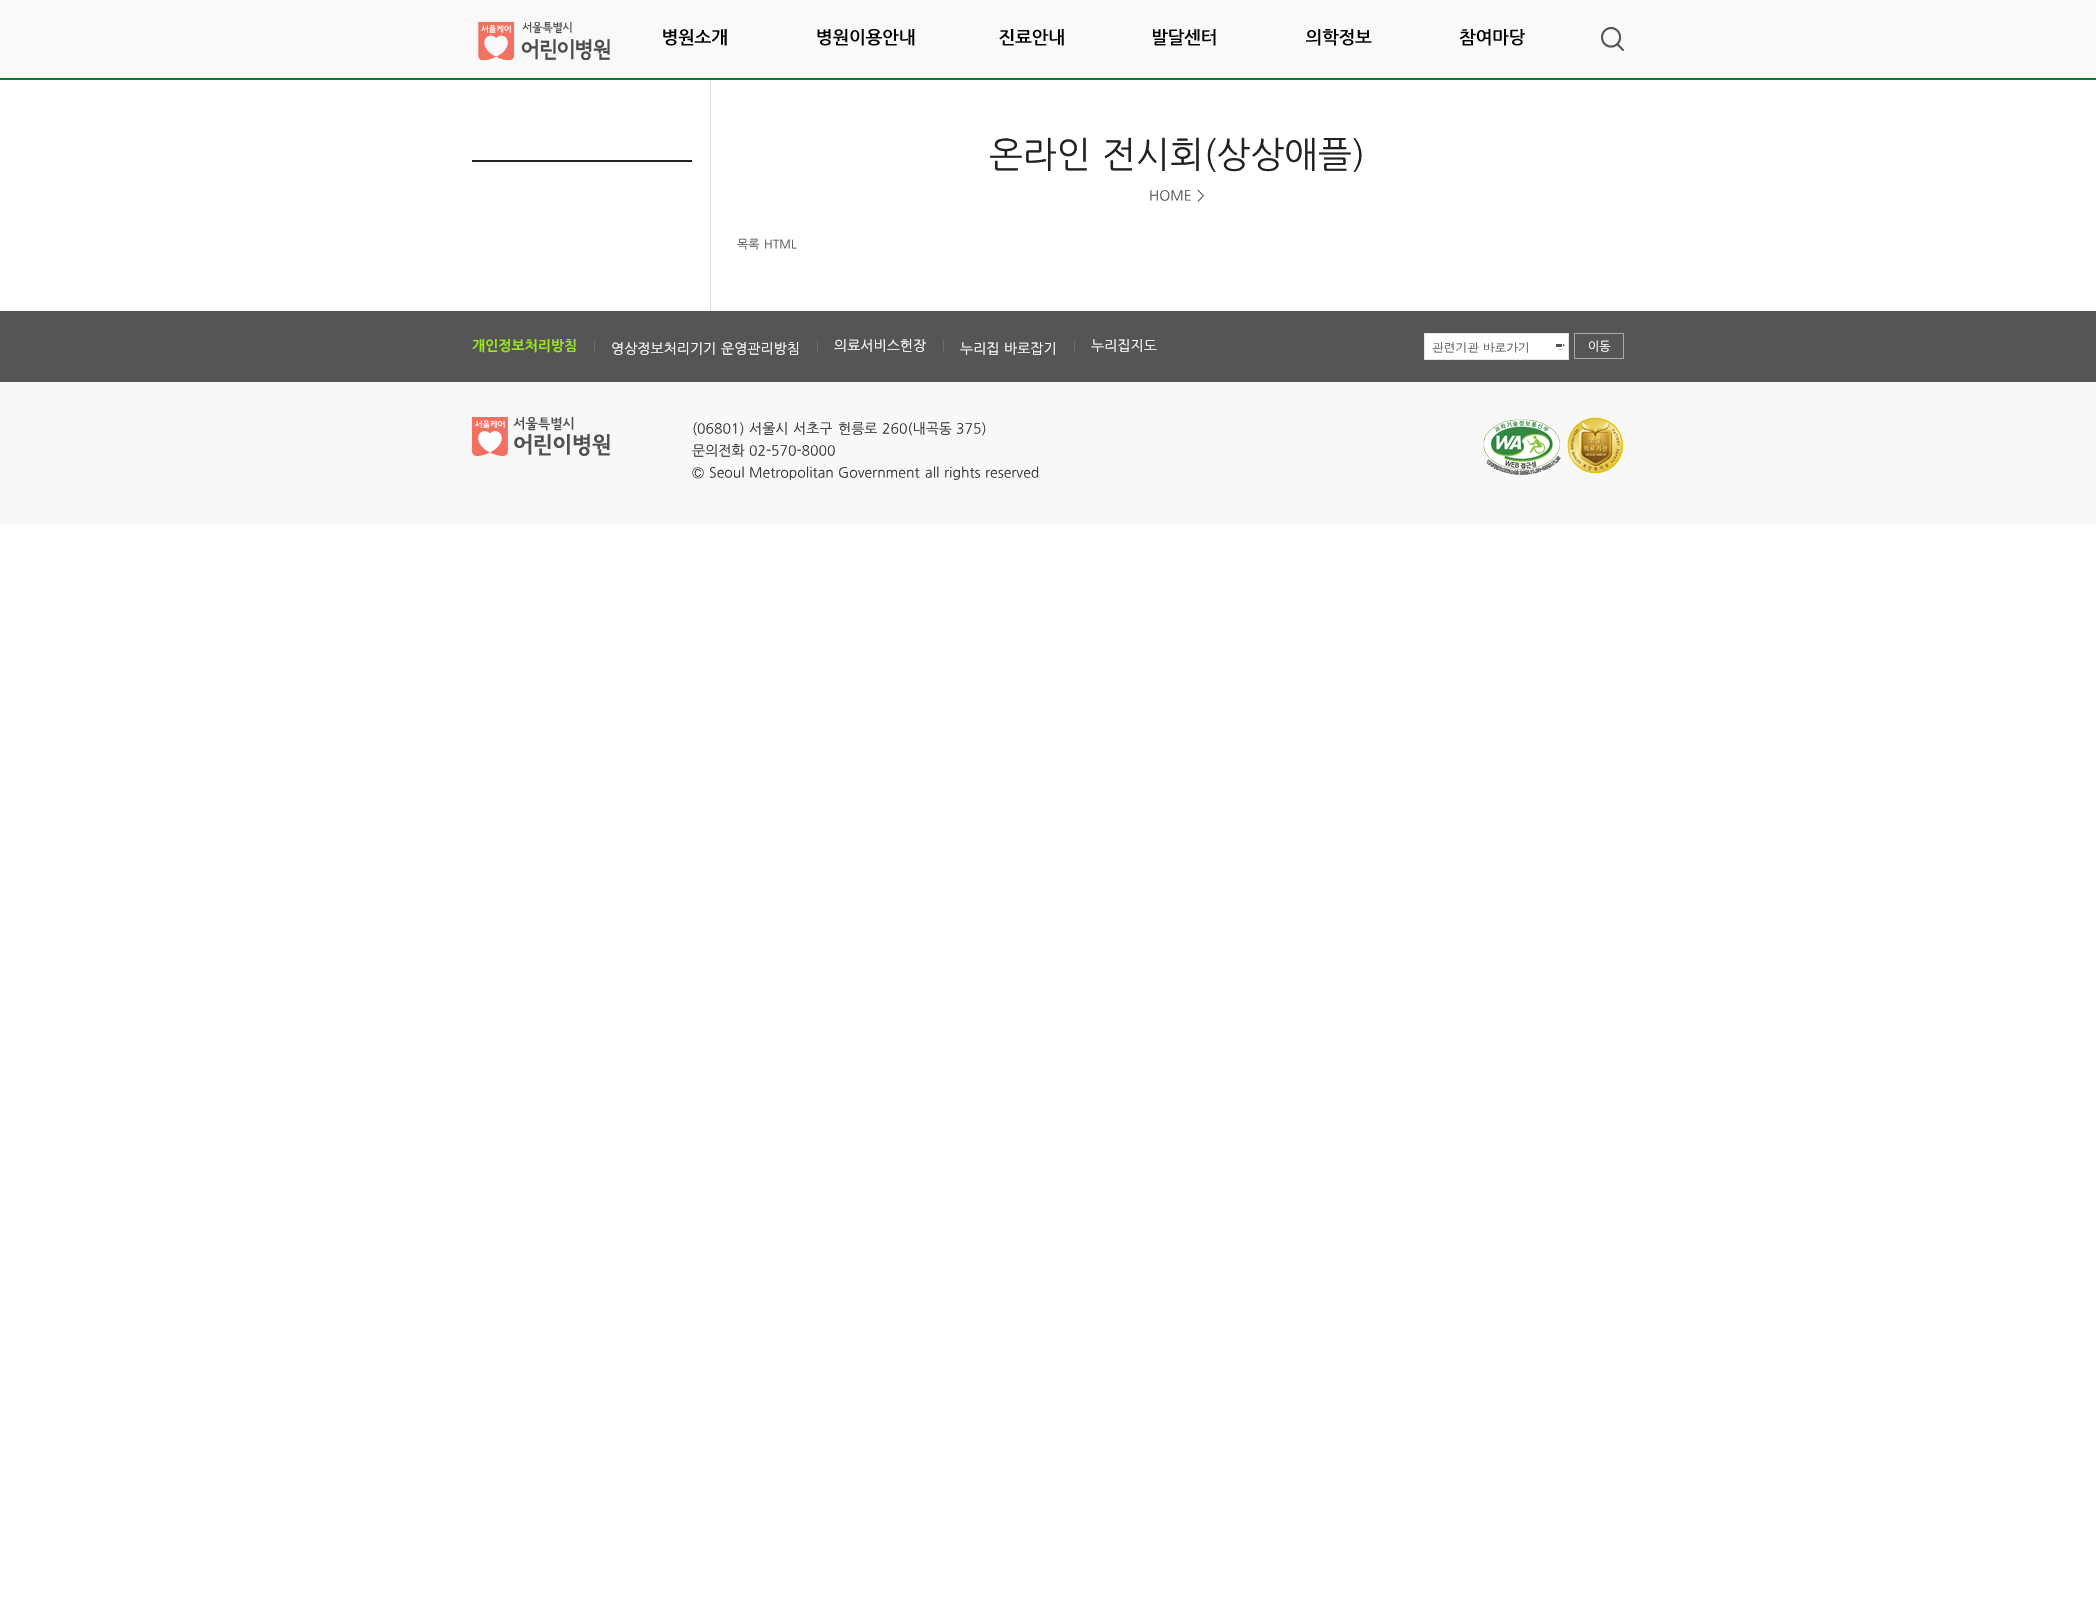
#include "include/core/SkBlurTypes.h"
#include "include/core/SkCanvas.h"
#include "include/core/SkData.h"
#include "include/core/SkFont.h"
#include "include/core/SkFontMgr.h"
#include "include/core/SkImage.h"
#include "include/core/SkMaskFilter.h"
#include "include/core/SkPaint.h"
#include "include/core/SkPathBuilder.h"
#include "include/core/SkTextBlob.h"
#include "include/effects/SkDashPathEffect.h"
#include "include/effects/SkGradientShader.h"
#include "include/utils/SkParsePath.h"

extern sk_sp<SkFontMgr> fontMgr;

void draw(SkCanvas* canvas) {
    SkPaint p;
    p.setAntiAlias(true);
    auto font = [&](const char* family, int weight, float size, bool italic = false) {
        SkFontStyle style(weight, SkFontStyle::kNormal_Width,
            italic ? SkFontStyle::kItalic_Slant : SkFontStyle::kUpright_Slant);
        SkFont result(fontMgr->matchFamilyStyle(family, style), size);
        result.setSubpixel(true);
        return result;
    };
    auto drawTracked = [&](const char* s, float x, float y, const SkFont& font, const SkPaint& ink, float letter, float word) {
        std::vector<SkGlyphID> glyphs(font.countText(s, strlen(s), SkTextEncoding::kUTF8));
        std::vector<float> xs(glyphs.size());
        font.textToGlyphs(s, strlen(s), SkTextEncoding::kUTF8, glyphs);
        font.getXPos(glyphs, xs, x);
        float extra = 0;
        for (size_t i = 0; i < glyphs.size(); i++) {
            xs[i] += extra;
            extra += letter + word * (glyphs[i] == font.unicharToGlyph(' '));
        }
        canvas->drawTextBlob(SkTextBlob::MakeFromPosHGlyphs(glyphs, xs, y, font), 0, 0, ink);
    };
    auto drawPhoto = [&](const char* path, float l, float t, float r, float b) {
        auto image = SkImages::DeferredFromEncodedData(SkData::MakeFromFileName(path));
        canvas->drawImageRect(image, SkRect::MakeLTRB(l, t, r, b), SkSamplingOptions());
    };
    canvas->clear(0xFFFFFFFF);
    p.setColor(0xFFF9F9F9);
    canvas->drawRect(SkRect::MakeLTRB(0, 0, 2096, 78), p);
    p.setColor(0xFF007C37);
    canvas->drawRect(SkRect::MakeLTRB(0, 78, 2096, 80), p);
    drawPhoto("media/1.png", 478, 21, 610, 61);
    drawPhoto("media/2.png", 663, 29, 727, 46);
    drawPhoto("media/3.png", 817, 29, 915, 46);
    drawPhoto("media/4.png", 999, 29, 1064, 46);
    drawPhoto("media/5.png", 1153, 29, 1216, 46);
    drawPhoto("media/6.png", 1306, 29, 1372, 46);
    drawPhoto("media/7.png", 1460, 29, 1525, 46);
    drawPhoto("media/8.png", 1601, 27, 1624, 51);
    p.setColor(0xFFDDDDDD);
    canvas->drawRect(SkRect::MakeLTRB(710, 80, 711, 311), p);
    p.setColor(0xFF222222);
    canvas->drawRect(SkRect::MakeLTRB(472, 160, 692, 162), p);
    auto font1 = font("NanumGothic", 400, 36);
    canvas->drawString("온라인", 989, 166, font1, p);
    canvas->save();
    canvas->clipRect(SkRect::MakeLTRB(737, 125, 1617, 172));
    canvas->drawString("전시회(상상애플)", 1102, 166, font1, p);
    canvas->restore();
    auto font2 = font("NanumGothic", 400, 14);
    p.setColor(0xFF555555);
    canvas->drawString("HOME", 1149, 200, font2, p);
    canvas->drawString(">", 1197, 200, font2, p);
    auto font3 = font("NanumGothic", 400, 12);
    canvas->drawString("목록", 737, 248, font3, p);
    canvas->drawString("HTML", 764, 248, font3, p);
    canvas->drawRect(SkRect::MakeLTRB(0, 311, 2096, 382), p);
    auto font4 = font("NanumGothic", 700, 14);
    p.setColor(0xFF9BE71F);
    canvas->drawString("개인정보처리방침", 472, 350, font4, p);
    p.setColor(0xFF6A6D72);
    canvas->drawRect(SkRect::MakeLTRB(594, 340, 595, 353), p);
    p.setColor(0xFFFFFFFF);
    canvas->drawString("영상정보처리기기", 611, 353, font2, p);
    canvas->drawString("운영관리방침", 721, 353, font2, p);
    p.setColor(0xFF6A6D72);
    canvas->drawRect(SkRect::MakeLTRB(817, 340, 818, 353), p);
    p.setColor(0xFFFFFFFF);
    canvas->drawString("의료서비스헌장", 834, 350, font2, p);
    p.setColor(0xFF6A6D72);
    canvas->drawRect(SkRect::MakeLTRB(943, 340, 944, 353), p);
    p.setColor(0xFFFFFFFF);
    canvas->drawString("누리집", 960, 353, font2, p);
    canvas->drawString("바로잡기", 1004, 353, font2, p);
    p.setColor(0xFF6A6D72);
    canvas->drawRect(SkRect::MakeLTRB(1074, 340, 1075, 353), p);
    p.setColor(0xFFFFFFFF);
    canvas->drawString("누리집지도", 1091, 350, font2, p);
    canvas->drawRect(SkRect::MakeLTRB(1424.5f, 333.5f, 1568.5f, 359.5f), p);
    p.setStyle(SkPaint::kStroke_Style);
    p.setStrokeWidth(1);
    p.setColor(0xFFE5E5E5);
    canvas->drawRect(SkRect::MakeLTRB(1424.5f, 333.5f, 1568.5f, 359.5f), p);
    p.setStrokeWidth(2);
    p.setColor(0xFF555555);
    canvas->drawPath(SkPathBuilder().moveTo(1556, 344.5f).lineTo(1560, 348.5f).lineTo(1564, 344.5f).detach(), p);
    auto font5 = font("Dotum", 400, 12);
    p.setStyle(SkPaint::kFill_Style);
    drawTracked("관련기관 바로가기", 1432, 352, font5, p, -0.25f, 0);
    p.setColor(0xFFFFFFFF);
    canvas->drawRect(SkRect::MakeLTRB(1555, 343, 1563, 349), p);
    p.setColor(0xFF555555);
    canvas->drawRect(SkRect::MakeLTRB(1556, 344, 1562, 347), p);
    p.setStyle(SkPaint::kStroke_Style);
    p.setStrokeWidth(1);
    p.setColor(0xFFAAAAAA);
    canvas->drawRect(SkRect::MakeLTRB(1574.5f, 333.5f, 1623.5f, 358.5f), p);
    p.setStyle(SkPaint::kFill_Style);
    p.setColor(0xFFFFFFFF);
    canvas->drawString("이동", 1588, 350, font3, p);
    p.setColor(0xFFF8F8F8);
    canvas->drawRect(SkRect::MakeLTRB(0, 382, 2096, 524), p);
    drawPhoto("media/9.png", 472, 417, 610, 456);
    p.setColor(0xFF333333);
    {
        const struct { const char* s; float x, y; } items[] = {
            {"(06801)", 692, 433},
            {"서울시", 749, 433},
            {"서초구", 793, 433},
            {"헌릉로", 838, 433},
            {"260(내곡동", 882, 433},
            {"375)", 956, 433},
            {"문의전화", 692, 455},
            {"02-570-8000", 749, 455},
            {"©", 692, 477},
            {"Seoul", 709, 477},
            {"Metropolitan", 749, 477},
            {"Government", 838, 477},
            {"all", 925, 477},
            {"rights", 944, 477},
            {"reserved", 985, 477},
        };
        for (auto [s, x, y] : items) {
            canvas->drawString(s, x, y, font2, p);
        }
    }
    drawPhoto("media/10.png", 1483, 419, 1561, 475);
    drawPhoto("media/11.png", 1567, 417, 1624, 474);
}
